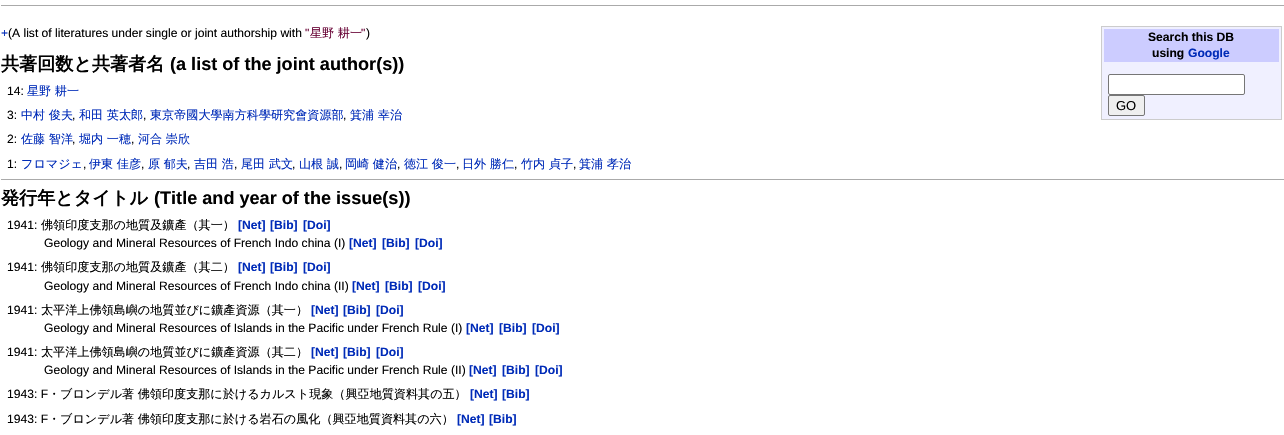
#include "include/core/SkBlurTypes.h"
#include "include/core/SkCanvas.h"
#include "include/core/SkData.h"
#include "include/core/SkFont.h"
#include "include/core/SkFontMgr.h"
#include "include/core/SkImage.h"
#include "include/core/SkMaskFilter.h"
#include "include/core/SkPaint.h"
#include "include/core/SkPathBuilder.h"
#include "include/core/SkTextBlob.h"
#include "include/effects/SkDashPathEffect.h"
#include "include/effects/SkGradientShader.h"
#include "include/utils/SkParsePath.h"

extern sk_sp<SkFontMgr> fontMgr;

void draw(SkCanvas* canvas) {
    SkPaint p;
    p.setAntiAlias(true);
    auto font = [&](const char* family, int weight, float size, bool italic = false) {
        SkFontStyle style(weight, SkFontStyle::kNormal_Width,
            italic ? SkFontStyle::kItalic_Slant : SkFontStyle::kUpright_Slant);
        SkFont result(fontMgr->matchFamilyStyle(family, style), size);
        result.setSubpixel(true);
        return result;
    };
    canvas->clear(0xFFFFFFFF);
    p.setColor(0xFFAAAAAA);
    canvas->drawRect(SkRect::MakeLTRB(1, 5, 1284, 6), p);
    auto font1 = font("Liberation Sans", 400, 12.1f);
    p.setColor(0xFF002BB8);
    canvas->drawString("+", 1, 37, font1, p);
    p.setColor(0xFF000000);
    canvas->drawString("(A list of literatures under single or joint authorship with", 8, 37, font1, p);
    p.setColor(0xFF660033);
    canvas->drawString("\"", 305, 37, font1, p);
    auto font2 = font("WenQuanYi Zen Hei", 500, 12.1f);
    canvas->drawString("星野 耕一", 310, 37, font2, p);
    canvas->drawString("\"", 361, 37, font1, p);
    p.setColor(0xFF000000);
    canvas->drawString(")", 366, 37, font1, p);
    p.setColor(0xFFF0F0FF);
    canvas->drawRect(SkRect::MakeLTRB(1101.5f, 26.5f, 1281.5f, 119.5f), p);
    p.setStyle(SkPaint::kStroke_Style);
    p.setStrokeWidth(1);
    p.setColor(0xFFCCCCCC);
    canvas->drawRect(SkRect::MakeLTRB(1101.5f, 26.5f, 1281.5f, 119.5f), p);
    p.setStyle(SkPaint::kFill_Style);
    p.setColor(0xFFCCCCFF);
    canvas->drawRect(SkRect::MakeLTRB(1104, 29, 1279, 62), p);
    auto font3 = font("Liberation Sans", 700, 12.1f);
    p.setColor(0xFF000000);
    canvas->drawString("Search this DB", 1148, 41, font3, p);
    canvas->drawString("using", 1152, 57, font3, p);
    p.setColor(0xFF002BB8);
    canvas->drawString("Google", 1188, 57, font3, p);
    p.setColor(0xFFFFFFFF);
    canvas->drawRoundRect(SkRect::MakeLTRB(1108.5f, 74.5f, 1244.5f, 94.5f), 1.5f, 1.5f, p);
    p.setStyle(SkPaint::kStroke_Style);
    p.setColor(0xFF767676);
    canvas->drawRoundRect(SkRect::MakeLTRB(1108.5f, 74.5f, 1244.5f, 94.5f), 1.5f, 1.5f, p);
    p.setStyle(SkPaint::kFill_Style);
    p.setColor(0xFFEFEFEF);
    canvas->drawRoundRect(SkRect::MakeLTRB(1108.5f, 95.5f, 1144.5f, 115.5f), 1.5f, 1.5f, p);
    p.setStyle(SkPaint::kStroke_Style);
    p.setColor(0xFF767676);
    canvas->drawRoundRect(SkRect::MakeLTRB(1108.5f, 95.5f, 1144.5f, 115.5f), 1.5f, 1.5f, p);
    auto font4 = font("Liberation Sans", 400, 13);
    p.setStyle(SkPaint::kFill_Style);
    p.setColor(0xFF000000);
    canvas->drawString("GO", 1116, 110, font4, p);
    auto font5 = font("WenQuanYi Zen Hei", 700, 18.1f);
    canvas->drawString("共著回数と共著者名", 1, 70, font5, p);
    auto font6 = font("Liberation Sans", 700, 18.1f);
    canvas->drawString("(a list of the joint author(s))", 170, 70, font6, p);
    canvas->drawString("14:", 7, 95, font1, p);
    p.setColor(0xFF002BB8);
    canvas->drawString("星野 耕一", 27, 95, font2, p);
    p.setColor(0xFF000000);
    canvas->drawString("3:", 7, 119, font1, p);
    p.setColor(0xFF002BB8);
    canvas->drawString("中村 俊夫", 21, 119, font2, p);
    p.setColor(0xFF000000);
    canvas->drawString(",", 72, 119, font1, p);
    p.setColor(0xFF002BB8);
    canvas->drawString("和田 英太郎", 79, 119, font2, p);
    p.setColor(0xFF000000);
    canvas->drawString(",", 143, 119, font1, p);
    p.setColor(0xFF002BB8);
    canvas->drawString("東京帝國大學南方科學研究會資源部", 150, 119, font2, p);
    p.setColor(0xFF000000);
    canvas->drawString(",", 343, 119, font1, p);
    p.setColor(0xFF002BB8);
    canvas->drawString("箕浦 幸治", 350, 119, font2, p);
    p.setColor(0xFF000000);
    canvas->drawString("2:", 7, 143, font1, p);
    p.setColor(0xFF002BB8);
    canvas->drawString("佐藤 智洋", 21, 143, font2, p);
    p.setColor(0xFF000000);
    canvas->drawString(",", 72, 143, font1, p);
    p.setColor(0xFF002BB8);
    canvas->drawString("堀内 一穂", 79, 143, font2, p);
    p.setColor(0xFF000000);
    canvas->drawString(",", 131, 143, font1, p);
    p.setColor(0xFF002BB8);
    canvas->drawString("河合 崇欣", 138, 143, font2, p);
    p.setColor(0xFF000000);
    canvas->drawString("1:", 7, 168, font1, p);
    p.setColor(0xFF002BB8);
    canvas->drawString("フロマジェ", 21, 168, font2, p);
    p.setColor(0xFF000000);
    canvas->drawString(",", 83, 168, font1, p);
    p.setColor(0xFF002BB8);
    canvas->drawString("伊東 佳彦", 89, 168, font2, p);
    p.setColor(0xFF000000);
    canvas->drawString(",", 141, 168, font1, p);
    p.setColor(0xFF002BB8);
    canvas->drawString("原 郁夫", 148, 168, font2, p);
    p.setColor(0xFF000000);
    canvas->drawString(",", 187, 168, font1, p);
    p.setColor(0xFF002BB8);
    canvas->drawString("吉田 浩", 194, 168, font2, p);
    p.setColor(0xFF000000);
    canvas->drawString(",", 234, 168, font1, p);
    p.setColor(0xFF002BB8);
    canvas->drawString("尾田 武文", 241, 168, font2, p);
    p.setColor(0xFF000000);
    canvas->drawString(",", 292, 168, font1, p);
    p.setColor(0xFF002BB8);
    canvas->drawString("山根 誠", 299, 168, font2, p);
    p.setColor(0xFF000000);
    canvas->drawString(",", 339, 168, font1, p);
    p.setColor(0xFF002BB8);
    canvas->drawString("岡崎 健治", 345, 168, font2, p);
    p.setColor(0xFF000000);
    canvas->drawString(",", 397, 168, font1, p);
    p.setColor(0xFF002BB8);
    canvas->drawString("徳江 俊一", 404, 168, font2, p);
    p.setColor(0xFF000000);
    canvas->drawString(",", 456, 168, font1, p);
    p.setColor(0xFF002BB8);
    canvas->drawString("日外 勝仁", 462, 168, font2, p);
    p.setColor(0xFF000000);
    canvas->drawString(",", 514, 168, font1, p);
    p.setColor(0xFF002BB8);
    canvas->drawString("竹内 貞子", 521, 168, font2, p);
    p.setColor(0xFF000000);
    canvas->drawString(",", 573, 168, font1, p);
    p.setColor(0xFF002BB8);
    canvas->drawString("箕浦 孝治", 579, 168, font2, p);
    p.setColor(0xFFAAAAAA);
    canvas->drawRect(SkRect::MakeLTRB(1, 179, 1284, 180), p);
    p.setColor(0xFF000000);
    canvas->drawString("発行年とタイトル", 1, 204, font5, p);
    canvas->drawString("(Title and year of the issue(s))", 154, 204, font6, p);
    canvas->drawString("1941:", 7, 229, font1, p);
    canvas->drawString("佛領印度支那の地質及鑛產（其一）", 41, 229, font2, p);
    p.setColor(0xFF002BB8);
    {
        const struct { const char* s; float x, y; } items[] = {
            {"[Net]", 238, 229},
            {"[Bib]", 270, 229},
            {"[Doi]", 303, 229},
        };
        for (auto [s, x, y] : items) {
            canvas->drawString(s, x, y, font3, p);
        }
    }
    p.setColor(0xFF000000);
    canvas->drawString("Geology and Mineral Resources of French Indo china (I)", 44, 247, font1, p);
    p.setColor(0xFF002BB8);
    {
        const struct { const char* s; float x, y; } items[] = {
            {"[Net]", 349, 247},
            {"[Bib]", 382, 247},
            {"[Doi]", 415, 247},
        };
        for (auto [s, x, y] : items) {
            canvas->drawString(s, x, y, font3, p);
        }
    }
    p.setColor(0xFF000000);
    canvas->drawString("1941:", 7, 271, font1, p);
    canvas->drawString("佛領印度支那の地質及鑛產（其二）", 41, 271, font2, p);
    p.setColor(0xFF002BB8);
    {
        const struct { const char* s; float x, y; } items[] = {
            {"[Net]", 238, 271},
            {"[Bib]", 270, 271},
            {"[Doi]", 303, 271},
        };
        for (auto [s, x, y] : items) {
            canvas->drawString(s, x, y, font3, p);
        }
    }
    p.setColor(0xFF000000);
    canvas->drawString("Geology and Mineral Resources of French Indo china (II)", 44, 290, font1, p);
    p.setColor(0xFF002BB8);
    {
        const struct { const char* s; float x, y; } items[] = {
            {"[Net]", 352, 290},
            {"[Bib]", 385, 290},
            {"[Doi]", 418, 290},
        };
        for (auto [s, x, y] : items) {
            canvas->drawString(s, x, y, font3, p);
        }
    }
    p.setColor(0xFF000000);
    canvas->drawString("1941:", 7, 314, font1, p);
    canvas->drawString("太平洋上佛領島嶼の地質並びに鑛產資源（其一）", 41, 314, font2, p);
    p.setColor(0xFF002BB8);
    {
        const struct { const char* s; float x, y; } items[] = {
            {"[Net]", 311, 314},
            {"[Bib]", 343, 314},
            {"[Doi]", 376, 314},
        };
        for (auto [s, x, y] : items) {
            canvas->drawString(s, x, y, font3, p);
        }
    }
    p.setColor(0xFF000000);
    canvas->drawString("Geology and Mineral Resources of Islands in the Pacific under French Rule (I)", 44, 332, font1, p);
    p.setColor(0xFF002BB8);
    {
        const struct { const char* s; float x, y; } items[] = {
            {"[Net]", 466, 332},
            {"[Bib]", 499, 332},
            {"[Doi]", 532, 332},
        };
        for (auto [s, x, y] : items) {
            canvas->drawString(s, x, y, font3, p);
        }
    }
    p.setColor(0xFF000000);
    canvas->drawString("1941:", 7, 356, font1, p);
    canvas->drawString("太平洋上佛領島嶼の地質並びに鑛產資源（其二）", 41, 356, font2, p);
    p.setColor(0xFF002BB8);
    {
        const struct { const char* s; float x, y; } items[] = {
            {"[Net]", 311, 356},
            {"[Bib]", 343, 356},
            {"[Doi]", 376, 356},
        };
        for (auto [s, x, y] : items) {
            canvas->drawString(s, x, y, font3, p);
        }
    }
    p.setColor(0xFF000000);
    canvas->drawString("Geology and Mineral Resources of Islands in the Pacific under French Rule (II)", 44, 374, font1, p);
    p.setColor(0xFF002BB8);
    {
        const struct { const char* s; float x, y; } items[] = {
            {"[Net]", 469, 374},
            {"[Bib]", 502, 374},
            {"[Doi]", 535, 374},
        };
        for (auto [s, x, y] : items) {
            canvas->drawString(s, x, y, font3, p);
        }
    }
    p.setColor(0xFF000000);
    canvas->drawString("1943: F", 7, 398, font1, p);
    canvas->drawString("・ブロンデル著 佛領印度支那に於けるカルスト現象（興亞地質資料其の五）", 48, 398, font2, p);
    p.setColor(0xFF002BB8);
    canvas->drawString("[Net]", 470, 398, font3, p);
    canvas->drawString("[Bib]", 502, 398, font3, p);
    p.setColor(0xFF000000);
    canvas->drawString("1943: F", 7, 423, font1, p);
    canvas->drawString("・ブロンデル著 佛領印度支那に於ける岩石の風化（興亞地質資料其の六）", 48, 423, font2, p);
    p.setColor(0xFF002BB8);
    canvas->drawString("[Net]", 457, 423, font3, p);
    canvas->drawString("[Bib]", 489, 423, font3, p);
}
